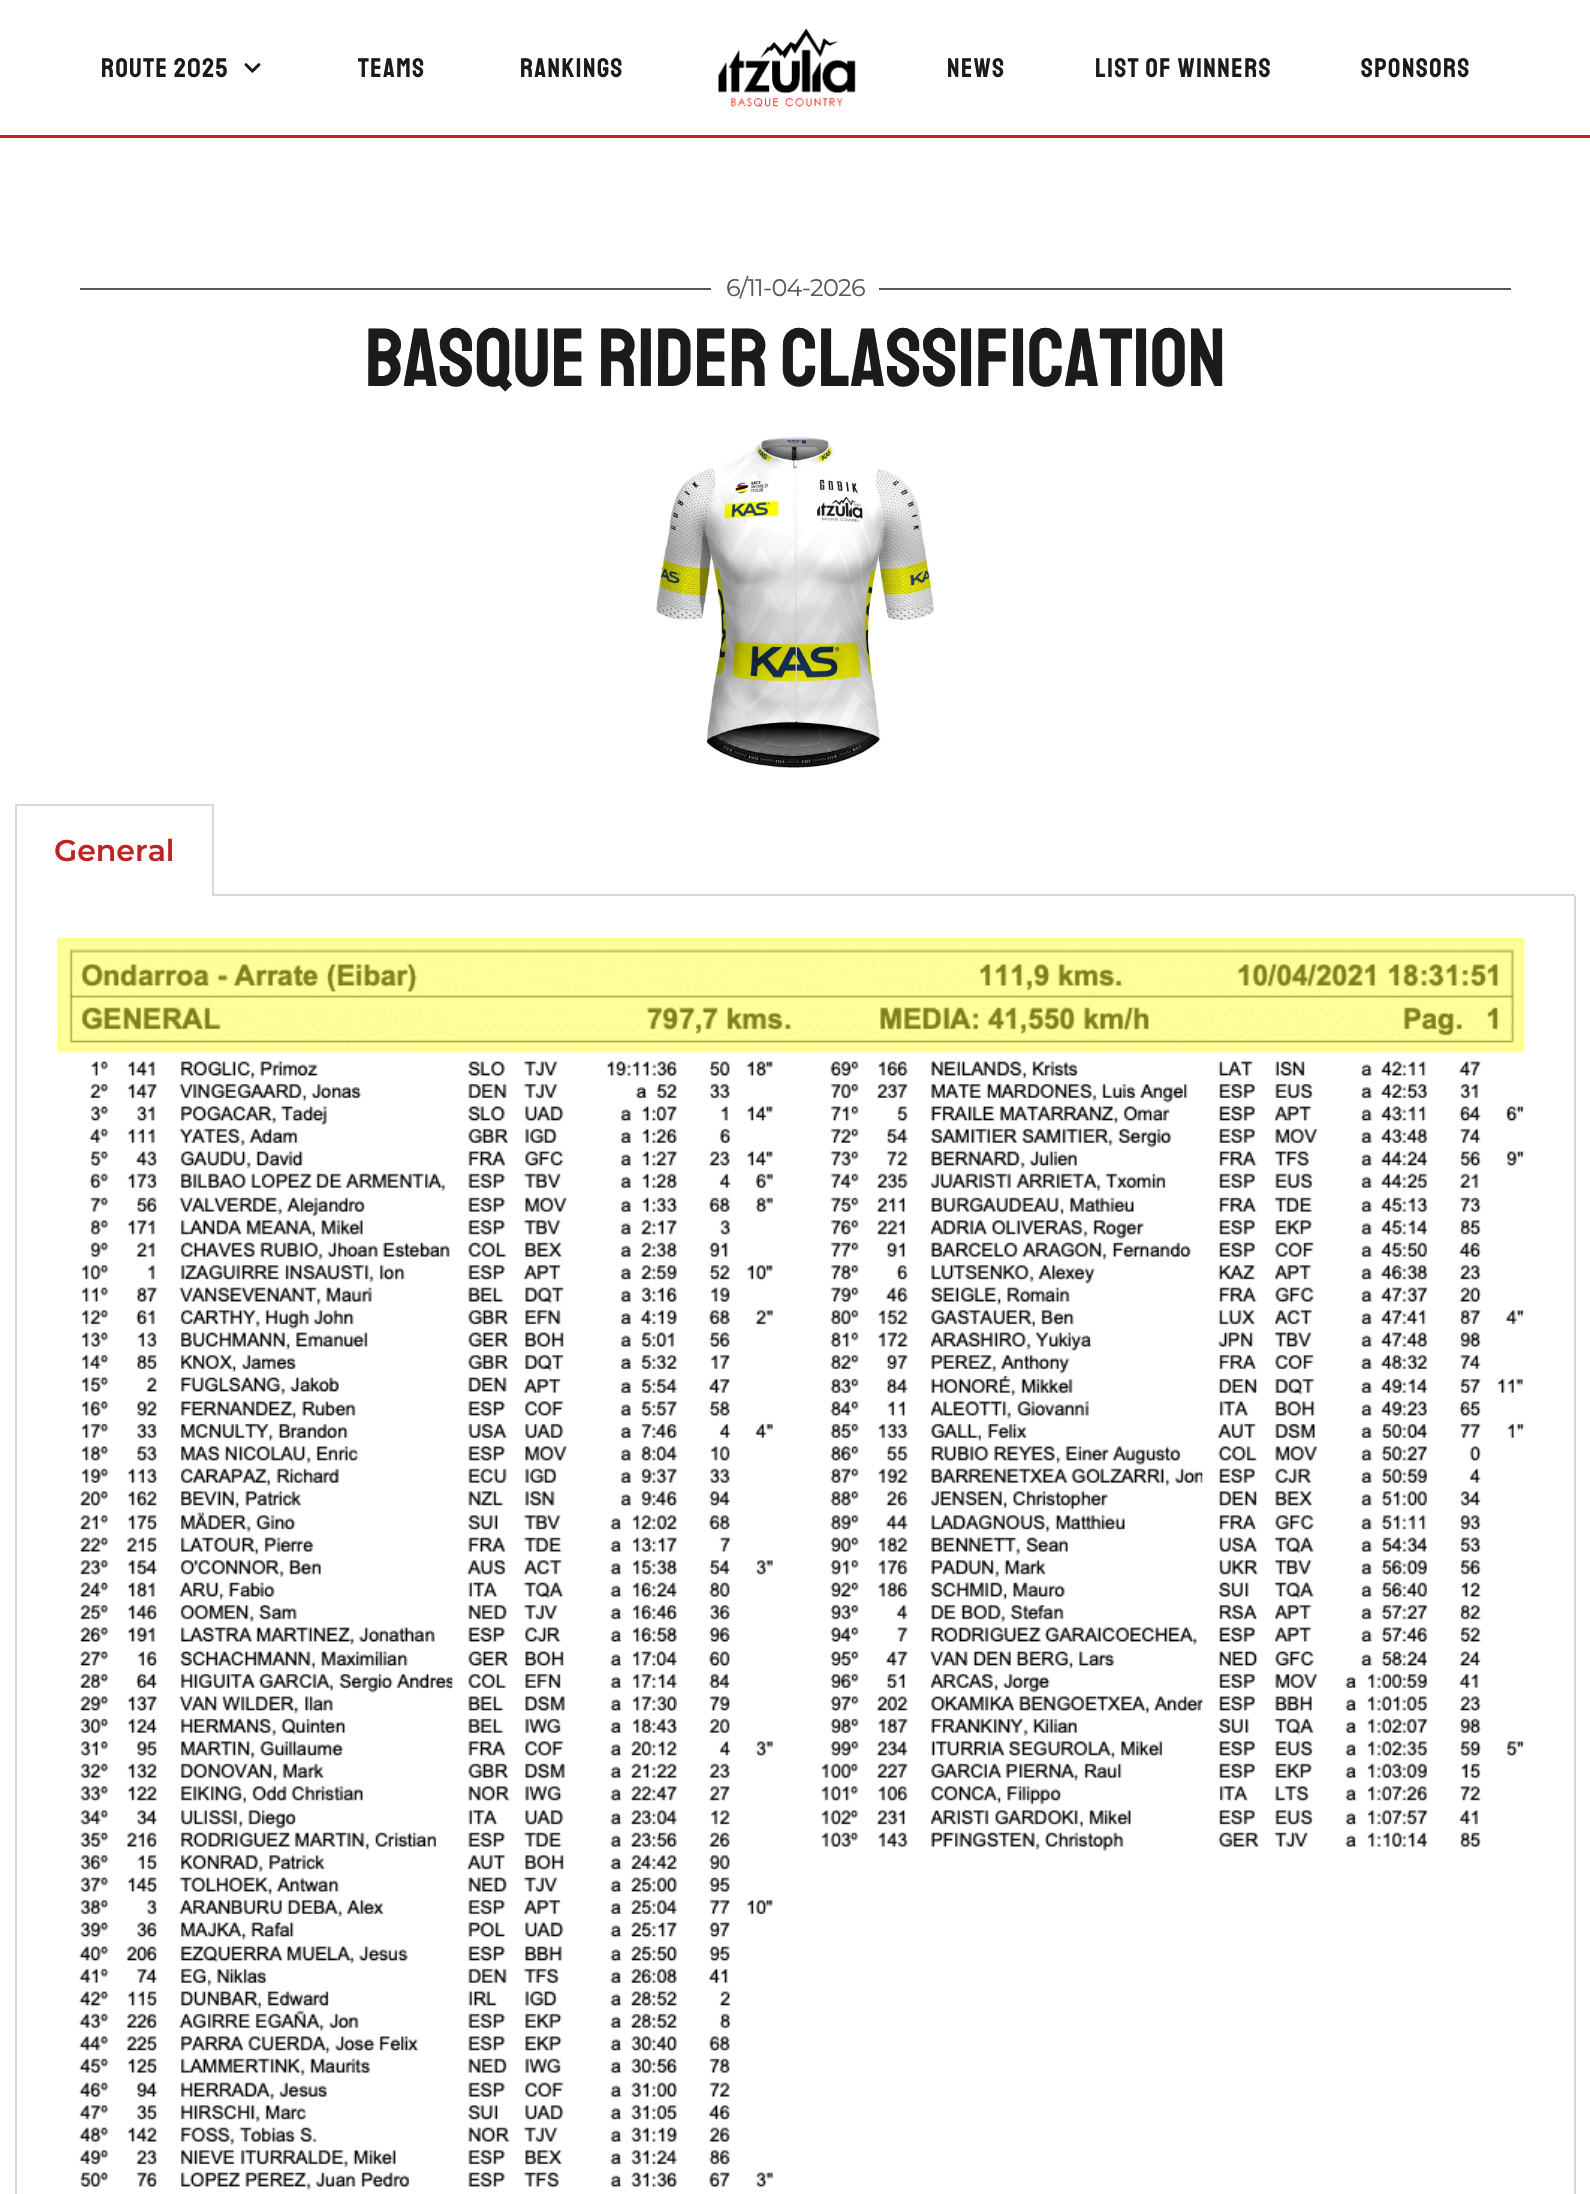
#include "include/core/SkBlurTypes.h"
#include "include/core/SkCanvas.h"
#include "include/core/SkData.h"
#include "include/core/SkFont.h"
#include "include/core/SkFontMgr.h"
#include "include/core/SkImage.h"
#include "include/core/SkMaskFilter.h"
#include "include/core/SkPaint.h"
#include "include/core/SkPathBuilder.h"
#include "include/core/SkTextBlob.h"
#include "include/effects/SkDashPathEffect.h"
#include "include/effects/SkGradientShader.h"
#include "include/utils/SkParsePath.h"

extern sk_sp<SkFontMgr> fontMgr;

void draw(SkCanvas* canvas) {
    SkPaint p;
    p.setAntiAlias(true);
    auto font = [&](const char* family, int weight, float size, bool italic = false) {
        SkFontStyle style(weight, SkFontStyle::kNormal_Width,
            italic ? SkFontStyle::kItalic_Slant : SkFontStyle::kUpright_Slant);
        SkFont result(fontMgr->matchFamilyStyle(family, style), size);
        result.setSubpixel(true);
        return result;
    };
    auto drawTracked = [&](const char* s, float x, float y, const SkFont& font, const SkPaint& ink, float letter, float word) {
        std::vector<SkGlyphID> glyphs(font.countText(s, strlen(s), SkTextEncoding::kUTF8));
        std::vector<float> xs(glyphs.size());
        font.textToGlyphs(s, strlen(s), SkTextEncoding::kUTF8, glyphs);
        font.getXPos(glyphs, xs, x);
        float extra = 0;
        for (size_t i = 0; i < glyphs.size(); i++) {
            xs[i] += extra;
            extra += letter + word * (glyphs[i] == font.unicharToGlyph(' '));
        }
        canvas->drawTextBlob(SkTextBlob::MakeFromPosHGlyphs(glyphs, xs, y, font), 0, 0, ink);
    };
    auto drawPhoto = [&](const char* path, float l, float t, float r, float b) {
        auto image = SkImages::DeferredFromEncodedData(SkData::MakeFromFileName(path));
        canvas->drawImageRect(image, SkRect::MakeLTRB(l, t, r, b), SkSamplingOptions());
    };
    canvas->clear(0xFFFFFFFF);
    auto font1 = font("Staatliches", 400, 27);
    p.setColor(0xFF1B1B1B);
    drawTracked("ROUTE 2025", 101, 77, font1, p, 1.5f, 0);
    drawPhoto("media/1.png", 244, 63, 261, 73);
    drawTracked("TEAMS", 358, 77, font1, p, 1.5f, 0);
    drawTracked("RANKINGS", 520, 77, font1, p, 1.5f, 0);
    drawPhoto("media/2.png", 718, 28, 856, 108);
    {
        const struct { const char* s; float x, y; } items[] = {
            {"NEWS", 947, 77},
            {"LIST OF WINNERS", 1095, 77},
            {"SPONSORS", 1361, 77},
        };
        for (auto [s, x, y] : items) {
            drawTracked(s, x, y, font1, p, 1.5f, 0);
        }
    }
    p.setColor(0xFFBE2423);
    canvas->drawRect(SkRect::MakeLTRB(0, 135, 1590, 138), p);
    p.setColor(0xFF54595F);
    canvas->drawRect(SkRect::MakeLTRB(80, 288, 711, 290), p);
    auto font2 = font("Montserrat", 400, 24);
    drawTracked("6/11-04-2026", 726, 296, font2, p, -0.75f, 0);
    canvas->drawRect(SkRect::MakeLTRB(879, 288, 1511, 290), p);
    auto font3 = font("Staatliches", 400, 82.5f);
    p.setColor(0xFF1B1B1B);
    canvas->drawString("Basque rider Classification", 365, 386, font3, p);
    drawPhoto("media/3.png", 656, 436, 934, 768);
    {
        const struct { float l, t, r, b; SkColor color; } items[] = {
            {15, 804, 213, 806, 0xFFD5D8DC},
            {212, 804, 214, 896, 0xFFD5D8DC},
            {15, 804, 17, 896, 0xFFD5D8DC},
        };
        for (auto [l, t, r, b, color] : items) {
            p.setColor(color);
            canvas->drawRect(SkRect::MakeLTRB(l, t, r, b), p);
        }
    }
    auto font4 = font("Montserrat", 600, 30);
    p.setColor(0xFFBE2423);
    canvas->drawString("General", 54, 861, font4, p);
    {
        const struct { float l, t, r, b; SkColor color; } items[] = {
            {212, 894, 1575, 896, 0xFFD5D8DC},
            {1574, 896, 1576, 2194, 0xFFD5D8DC},
            {15, 896, 17, 2194, 0xFFD5D8DC},
        };
        for (auto [l, t, r, b, color] : items) {
            p.setColor(color);
            canvas->drawRect(SkRect::MakeLTRB(l, t, r, b), p);
        }
    }
    drawPhoto("media/4.png", 56, 937, 1525, 2190);
}
